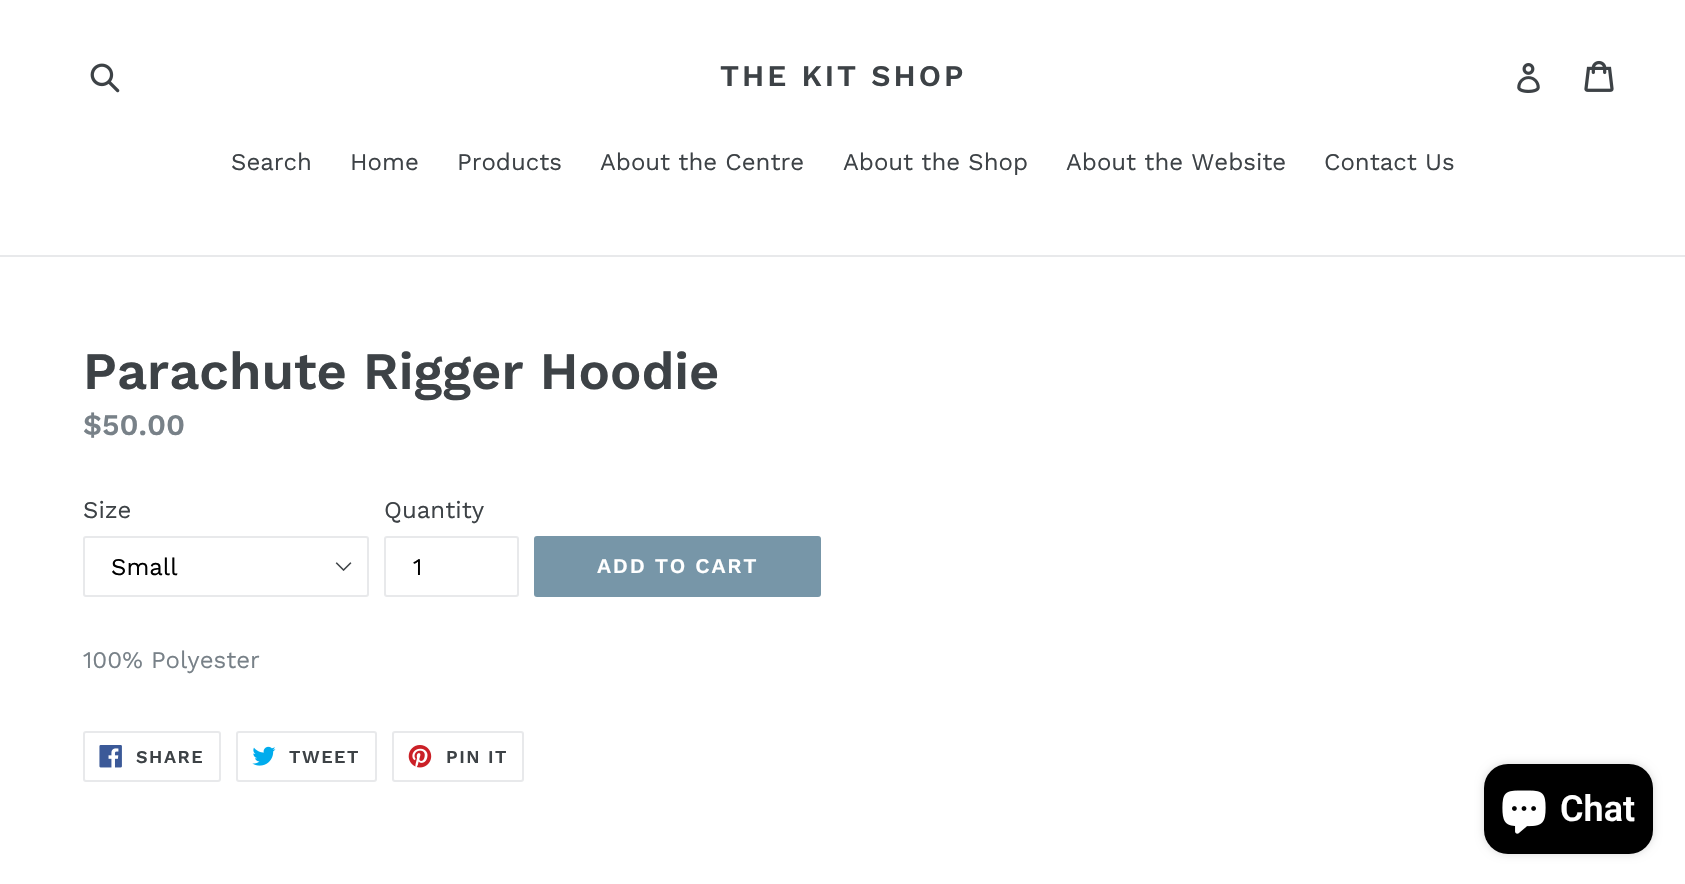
#include "include/core/SkBlurTypes.h"
#include "include/core/SkCanvas.h"
#include "include/core/SkData.h"
#include "include/core/SkFont.h"
#include "include/core/SkFontMgr.h"
#include "include/core/SkImage.h"
#include "include/core/SkMaskFilter.h"
#include "include/core/SkPaint.h"
#include "include/core/SkPathBuilder.h"
#include "include/core/SkTextBlob.h"
#include "include/effects/SkDashPathEffect.h"
#include "include/effects/SkGradientShader.h"
#include "include/utils/SkParsePath.h"

extern sk_sp<SkFontMgr> fontMgr;

void draw(SkCanvas* canvas) {
    SkPaint p;
    p.setAntiAlias(true);
    auto font = [&](const char* family, int weight, float size, bool italic = false) {
        SkFontStyle style(weight, SkFontStyle::kNormal_Width,
            italic ? SkFontStyle::kItalic_Slant : SkFontStyle::kUpright_Slant);
        SkFont result(fontMgr->matchFamilyStyle(family, style), size);
        result.setSubpixel(true);
        return result;
    };
    auto drawTracked = [&](const char* s, float x, float y, const SkFont& font, const SkPaint& ink, float letter, float word) {
        std::vector<SkGlyphID> glyphs(font.countText(s, strlen(s), SkTextEncoding::kUTF8));
        std::vector<float> xs(glyphs.size());
        font.textToGlyphs(s, strlen(s), SkTextEncoding::kUTF8, glyphs);
        font.getXPos(glyphs, xs, x);
        float extra = 0;
        for (size_t i = 0; i < glyphs.size(); i++) {
            xs[i] += extra;
            extra += letter + word * (glyphs[i] == font.unicharToGlyph(' '));
        }
        canvas->drawTextBlob(SkTextBlob::MakeFromPosHGlyphs(glyphs, xs, y, font), 0, 0, ink);
    };
    auto drawPhoto = [&](const char* path, float l, float t, float r, float b) {
        auto image = SkImages::DeferredFromEncodedData(SkData::MakeFromFileName(path));
        canvas->drawImageRect(image, SkRect::MakeLTRB(l, t, r, b), SkSamplingOptions());
    };
    canvas->clear(0xFFFFFFFF);
    drawPhoto("media/1.png", 90, 63, 120, 93);
    auto font1 = font("Work Sans", 600, 30);
    p.setColor(0xFF3D4246);
    drawTracked("THE KIT SHOP", 720, 86, font1, p, 3, 0);
    drawPhoto("media/2.png", 1517, 63, 1540, 93);
    drawPhoto("media/3.png", 1584, 60, 1614, 92);
    p.setColor(0xFFE8E9EB);
    canvas->drawRect(SkRect::MakeLTRB(0, 255, 1685, 257), p);
    auto font2 = font("Work Sans", 400, 24);
    p.setColor(0xFF3D4246);
    {
        const struct { const char* s; float x, y; } items[] = {
            {"Search", 231, 170},
            {"Home", 350, 170},
            {"Products", 457, 170},
            {"About the Centre", 600, 170},
            {"About the Shop", 843, 170},
            {"About the Website", 1066, 170},
            {"Contact Us", 1324, 170},
        };
        for (auto [s, x, y] : items) {
            canvas->drawString(s, x, y, font2, p);
        }
    }
    auto font3 = font("Work Sans", 600, 52.5f);
    canvas->drawString("Parachute Rigger Hoodie", 83, 389, font3, p);
    p.setColor(0xFF788188);
    canvas->drawString("$50.00", 83, 435, font1, p);
    p.setColor(0xFF3D4246);
    canvas->drawString("Size", 83, 518, font2, p);
    drawPhoto("media/4.png", 335, 562, 352, 571);
    p.setStyle(SkPaint::kStroke_Style);
    p.setStrokeWidth(2);
    p.setColor(0xFFE8E9EB);
    canvas->drawRoundRect(SkRect::MakeLTRB(84, 537, 368, 596), 2, 2, p);
    p.setStyle(SkPaint::kFill_Style);
    p.setColor(0xFF000000);
    canvas->drawString("Small", 111, 575, font2, p);
    p.setColor(0xFF3D4246);
    canvas->drawString("Quantity", 384, 518, font2, p);
    p.setStyle(SkPaint::kStroke_Style);
    p.setColor(0xFFE8E9EB);
    canvas->drawRoundRect(SkRect::MakeLTRB(385, 537, 518, 596), 2, 2, p);
    p.setStyle(SkPaint::kFill_Style);
    p.setColor(0xFF000000);
    canvas->drawString("1", 413, 575, font2, p);
    p.setColor(0xFF7796A8);
    canvas->drawRoundRect(SkRect::MakeLTRB(534, 536, 821, 597), 3, 3, p);
    auto font4 = font("Work Sans", 600, 21);
    p.setColor(0xFFFFFFFF);
    drawTracked("ADD TO CART", 597, 573, font4, p, 1.75f, 0);
    p.setColor(0xFF788188);
    canvas->drawString("100% Polyester", 83, 668, font2, p);
    p.setStyle(SkPaint::kStroke_Style);
    p.setColor(0xFFE8E9EB);
    canvas->drawRoundRect(SkRect::MakeLTRB(84, 732, 220, 781), 2, 2, p);
    drawPhoto("media/5.png", 99, 745, 122, 768);
    auto font5 = font("Work Sans", 600, 18);
    p.setStyle(SkPaint::kFill_Style);
    p.setColor(0xFF3D4246);
    drawTracked("SHARE", 136, 763, font5, p, 1.5f, 0);
    p.setStyle(SkPaint::kStroke_Style);
    p.setColor(0xFFE8E9EB);
    canvas->drawRoundRect(SkRect::MakeLTRB(237, 732, 376, 781), 2, 2, p);
    drawPhoto("media/6.png", 252, 746, 276, 766);
    p.setStyle(SkPaint::kFill_Style);
    p.setColor(0xFF3D4246);
    drawTracked("TWEET", 289, 763, font5, p, 1.5f, 0);
    p.setStyle(SkPaint::kStroke_Style);
    p.setColor(0xFFE8E9EB);
    canvas->drawRoundRect(SkRect::MakeLTRB(393, 732, 523, 781), 2, 2, p);
    drawPhoto("media/7.png", 408, 745, 432, 768);
    p.setStyle(SkPaint::kFill_Style);
    p.setColor(0xFF3D4246);
    drawTracked("PIN IT", 446, 763, font5, p, 1.5f, 0);
    p.setColor(0x26000000);
    p.setMaskFilter(SkMaskFilter::MakeBlur(kNormal_SkBlurStyle, 4));
    canvas->drawRoundRect(SkRect::MakeLTRB(1484, 764, 1653, 854), 24, 24, p);
    p.setMaskFilter(nullptr);
    p.setColor(0xFF000000);
    canvas->drawRoundRect(SkRect::MakeLTRB(1484, 764, 1653, 854), 24, 24, p);
    drawPhoto("media/8.png", 1502, 790, 1546, 834);
    auto font6 = font("Roboto", 600, 36);
    p.setColor(0xFFFFFFFF);
    canvas->drawString("Chat", 1560, 821, font6, p);
}
